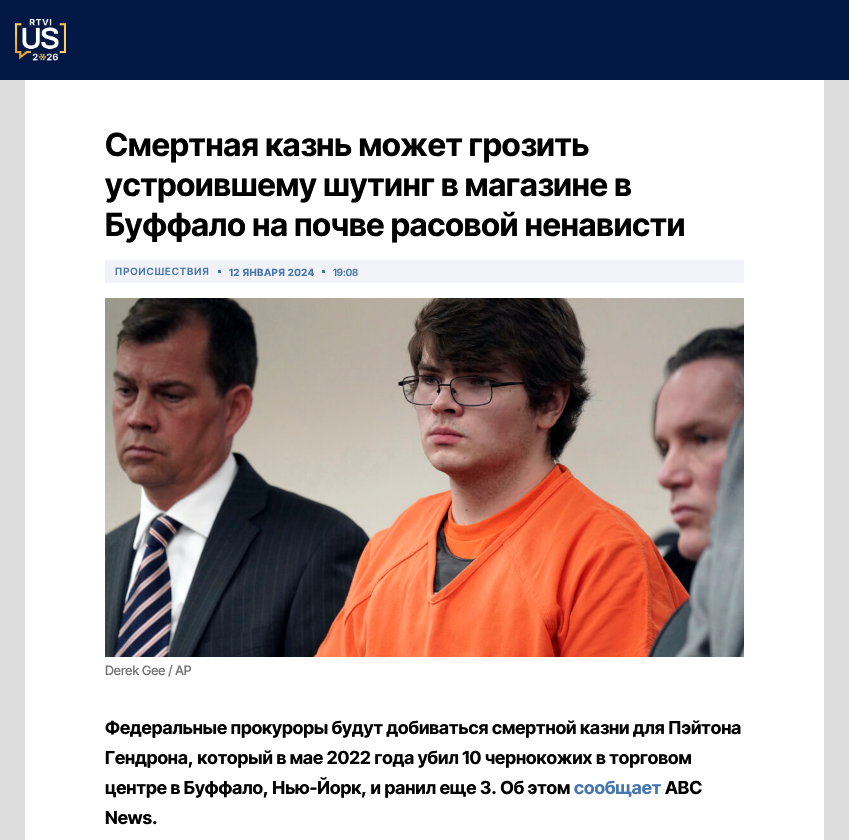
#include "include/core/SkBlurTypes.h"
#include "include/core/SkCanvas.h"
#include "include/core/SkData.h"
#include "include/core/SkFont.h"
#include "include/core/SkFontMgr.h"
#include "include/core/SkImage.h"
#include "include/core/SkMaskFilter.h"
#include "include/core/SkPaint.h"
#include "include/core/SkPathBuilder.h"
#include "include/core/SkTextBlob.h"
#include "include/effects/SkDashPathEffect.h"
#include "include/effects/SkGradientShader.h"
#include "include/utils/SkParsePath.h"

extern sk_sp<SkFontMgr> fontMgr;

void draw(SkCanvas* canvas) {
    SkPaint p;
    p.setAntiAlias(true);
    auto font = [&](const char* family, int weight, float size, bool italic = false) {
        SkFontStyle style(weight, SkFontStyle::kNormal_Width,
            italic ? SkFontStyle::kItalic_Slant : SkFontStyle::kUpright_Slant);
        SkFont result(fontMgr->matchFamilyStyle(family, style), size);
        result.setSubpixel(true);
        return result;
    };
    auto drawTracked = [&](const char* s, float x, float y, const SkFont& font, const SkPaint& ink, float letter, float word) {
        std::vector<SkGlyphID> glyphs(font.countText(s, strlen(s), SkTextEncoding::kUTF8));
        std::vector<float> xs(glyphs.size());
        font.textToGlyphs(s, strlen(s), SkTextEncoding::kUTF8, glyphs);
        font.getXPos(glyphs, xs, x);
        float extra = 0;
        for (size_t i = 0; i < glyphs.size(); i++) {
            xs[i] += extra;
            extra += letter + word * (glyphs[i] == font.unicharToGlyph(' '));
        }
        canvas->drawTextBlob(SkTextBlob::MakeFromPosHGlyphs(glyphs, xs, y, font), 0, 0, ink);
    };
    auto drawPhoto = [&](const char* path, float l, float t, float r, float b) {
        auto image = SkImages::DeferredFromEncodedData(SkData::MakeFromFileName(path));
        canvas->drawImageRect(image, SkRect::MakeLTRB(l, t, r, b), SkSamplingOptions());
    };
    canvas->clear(0xFFDDDDDD);
    p.setColor(0xFF031845);
    canvas->drawRect(SkRect::MakeLTRB(0, 0, 849, 80), p);
    drawPhoto("media/1.png", 15, 19, 66, 61);
    p.setColor(0xFFFFFFFF);
    canvas->drawRect(SkRect::MakeLTRB(25, 80, 824, 840), p);
    auto font1 = font("Inter Tight", 700, 32);
    p.setColor(0xFF000000);
    {
        const struct { const char* s; float x, y; } items[] = {
            {"Смертная казнь может грозить", 105, 156},
            {"устроившему шутинг в магазине в", 105, 196},
            {"Буффало на почве расовой ненависти", 105, 236},
        };
        for (auto [s, x, y] : items) {
            canvas->drawString(s, x, y, font1, p);
        }
    }
    p.setColor(0xFFF1F3F9);
    canvas->drawRect(SkRect::MakeLTRB(105, 260, 744, 283), p);
    auto font2 = font("Inter Tight", 600, 10);
    p.setColor(0xFF4576AE);
    drawTracked("ПРОИСШЕСТВИЯ", 115, 275, font2, p, 1, 0);
    canvas->drawRect(SkRect::MakeLTRB(218, 270, 221, 273), p);
    auto font3 = font("Inter Tight", 700, 10);
    drawTracked("12 ЯНВАРЯ 2024", 229, 276, font3, p, 0.5f, 0);
    canvas->drawRect(SkRect::MakeLTRB(322, 270, 325, 273), p);
    canvas->drawString("19:08", 333, 276, font2, p);
    drawPhoto("media/2.png", 105, 298, 744, 657);
    auto font4 = font("Inter Tight", 500, 13);
    p.setColor(0xFF727272);
    canvas->drawString("Derek Gee / AP", 105, 675, font4, p);
    auto font5 = font("Inter Tight", 700, 18);
    p.setColor(0xFF000000);
    {
        const struct { const char* s; float x, y; } items[] = {
            {"Федеральные прокуроры будут добиваться смертной казни для Пэйтона", 105, 734},
            {"Гендрона, который в мае 2022 года убил 10 чернокожих в торговом", 105, 764},
            {"центре в Буффало, Нью-Йорк, и ранил еще 3. Об этом", 105, 794},
        };
        for (auto [s, x, y] : items) {
            canvas->drawString(s, x, y, font5, p);
        }
    }
    p.setColor(0xFF4576AE);
    canvas->drawString("сообщает", 574, 794, font5, p);
    p.setColor(0xFF000000);
    canvas->drawString("ABC", 665, 794, font5, p);
    canvas->drawString("News.", 105, 824, font5, p);
}
